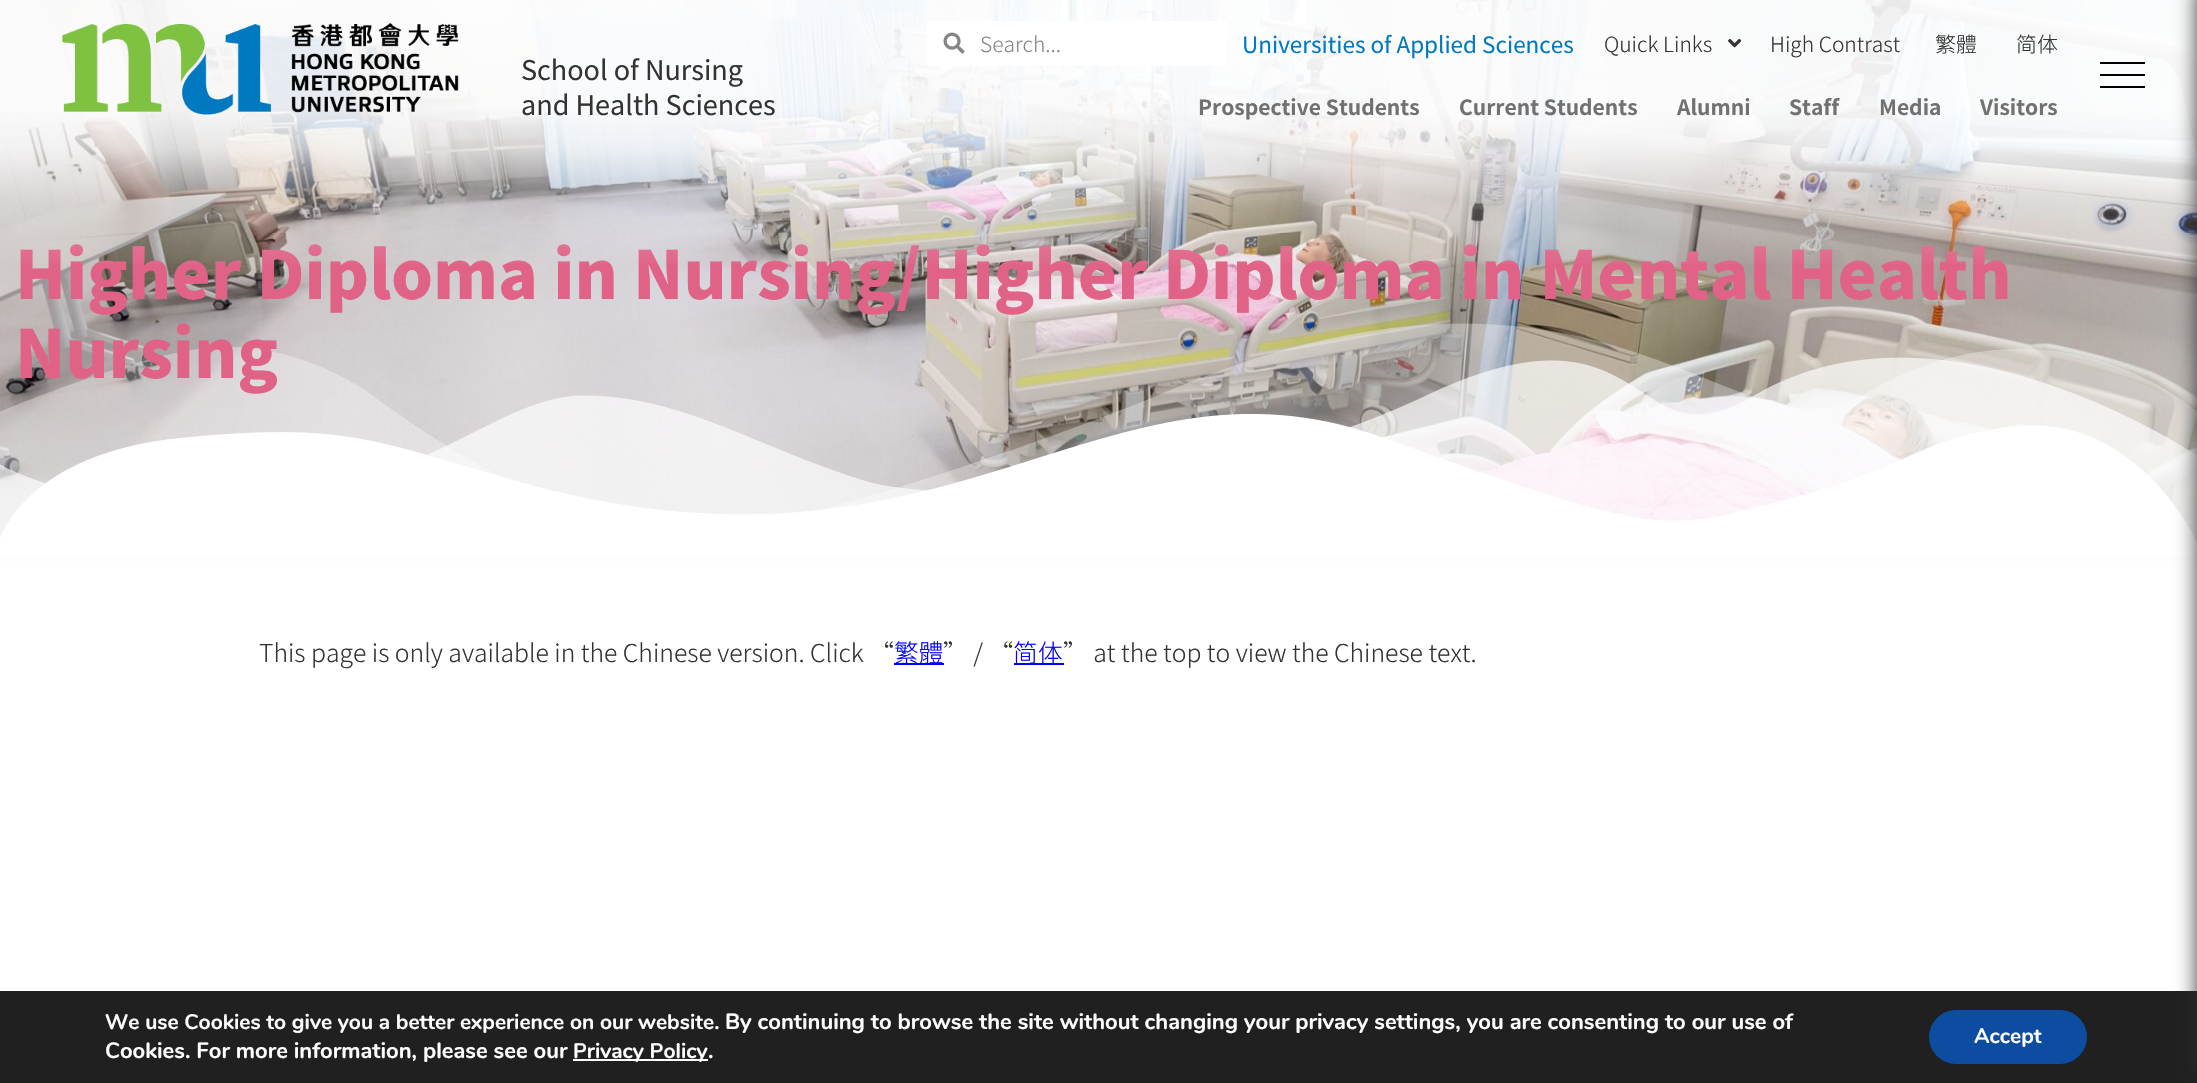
#include "include/core/SkBlurTypes.h"
#include "include/core/SkCanvas.h"
#include "include/core/SkData.h"
#include "include/core/SkFont.h"
#include "include/core/SkFontMgr.h"
#include "include/core/SkImage.h"
#include "include/core/SkMaskFilter.h"
#include "include/core/SkPaint.h"
#include "include/core/SkPathBuilder.h"
#include "include/core/SkTextBlob.h"
#include "include/effects/SkDashPathEffect.h"
#include "include/effects/SkGradientShader.h"
#include "include/utils/SkParsePath.h"

extern sk_sp<SkFontMgr> fontMgr;

void draw(SkCanvas* canvas) {
    SkPaint p;
    p.setAntiAlias(true);
    auto font = [&](const char* family, int weight, float size, bool italic = false) {
        SkFontStyle style(weight, SkFontStyle::kNormal_Width,
            italic ? SkFontStyle::kItalic_Slant : SkFontStyle::kUpright_Slant);
        SkFont result(fontMgr->matchFamilyStyle(family, style), size);
        result.setSubpixel(true);
        return result;
    };
    auto drawPhoto = [&](const char* path, float l, float t, float r, float b) {
        auto image = SkImages::DeferredFromEncodedData(SkData::MakeFromFileName(path));
        canvas->drawImageRect(image, SkRect::MakeLTRB(l, t, r, b), SkSamplingOptions());
    };
    canvas->clear(0xFFFFFFFF);
    p.setColor(0x80000000);
    p.setMaskFilter(SkMaskFilter::MakeBlur(kNormal_SkBlurStyle, 7.5f));
    canvas->drawRect(SkRect::MakeLTRB(0, 0, 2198, 542), p);
    p.setMaskFilter(nullptr);
    drawPhoto("media/4.png", 0, 0, 2197, 542);
    auto font1 = font("Noto Sans TC", 900, 66);
    p.setColor(0xFFE06287);
    canvas->drawString("Higher Diploma in Nursing/Higher Diploma in Mental Health", 15, 299, font1, p);
    {
        const SkColor colors[] = {0xE6FFFFFF, 0xBFFFFFFF, 0x40FFFFFF, 0x00FFFFFF};
        const float stops[] = {0.4f, 0.55f, 0.75f, 1};
        const SkPoint ends[] = {{1099, 0}, {1099, 270}};
        p.setShader(SkGradientShader::MakeLinear(ends, colors, stops, 4, SkTileMode::kClamp));
        p.setAlpha(255);
    }
    canvas->drawRect(SkRect::MakeLTRB(0, 0, 2197, 264), p);
    drawPhoto("media/1.png", 62, 23, 459, 115);
    auto font2 = font("Noto Sans TC", 400, 27);
    p.setShader(nullptr);
    p.setColor(0xFF333333);
    canvas->drawString("School of Nursing", 521, 80, font2, p);
    canvas->drawString("and Health Sciences", 521, 115, font2, p);
    p.setColor(0xFFFFFFFF);
    canvas->drawRect(SkRect::MakeLTRB(927, 21, 1227, 66), p);
    drawPhoto("media/2.png", 943, 32, 965, 54);
    auto font3 = font("Noto Sans TC", 300, 21);
    p.setColor(0xFF858585);
    canvas->drawString("Search...", 980, 52, font3, p);
    auto font4 = font("Noto Sans TC", 400, 22.5f);
    p.setColor(0xFF0079C1);
    canvas->drawString("Universities of Applied Sciences", 1242, 53, font4, p);
    p.setColor(0xFF333333);
    canvas->drawString("Quick Links", 1604, 52, font3, p);
    drawPhoto("media/3.png", 1728, 38, 1742, 48);
    canvas->drawString("High Contrast", 1770, 52, font3, p);
    canvas->drawString("繁體", 1935, 52, font3, p);
    auto font5 = font("Noto Sans SC", 300, 21);
    canvas->drawString("简", 2016, 52, font5, p);
    canvas->drawString("体", 2037, 52, font3, p);
    auto font6 = font("Noto Sans TC", 700, 21);
    p.setColor(0xFF727171);
    {
        const struct { const char* s; float x, y; } items[] = {
            {"Prospective Students", 1198, 115},
            {"Current Students", 1459, 115},
            {"Alumni", 1677, 115},
            {"Staff", 1789, 115},
            {"Media", 1879, 115},
            {"Visitors", 1980, 115},
        };
        for (auto [s, x, y] : items) {
            canvas->drawString(s, x, y, font6, p);
        }
    }
    {
        const struct { float l, t, r, b; SkColor color; } items[] = {
            {2100, 74, 2145, 76, 0xFF000000},
            {2100, 62, 2145, 64, 0xFF000000},
            {2100, 86, 2145, 88, 0xFF000000},
        };
        for (auto [l, t, r, b, color] : items) {
            p.setColor(color);
            canvas->drawRect(SkRect::MakeLTRB(l, t, r, b), p);
        }
    }
    drawPhoto("media/5.png", 0, 323, 2197, 542);
    p.setColor(0xFFFFFFFF);
    canvas->drawRect(SkRect::MakeLTRB(0, 542, 2197, 557), p);
    p.setColor(0xFF202020);
    canvas->drawRect(SkRect::MakeLTRB(0, 991, 2197, 1083), p);
    p.setColor(0xFF2D2D2D);
    p.setMaskFilter(SkMaskFilter::MakeBlur(kNormal_SkBlurStyle, 11));
    canvas->drawRect(SkRect::MakeLTRB(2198, -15, 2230, 1068), p);
    p.setMaskFilter(nullptr);
    p.setColor(0xFFE06287);
    canvas->drawString("Nursing", 15, 378, font1, p);
    auto font7 = font("Noto Sans TC", 300, 24.75f);
    p.setColor(0xFF333333);
    canvas->drawString("This page is only available in the Chinese version. Click “", 259, 662, font7, p);
    p.setColor(0xFF0000FF);
    canvas->drawRect(SkRect::MakeLTRB(894, 663, 944, 665), p);
    canvas->drawString("繁體", 894, 662, font7, p);
    p.setColor(0xFF333333);
    canvas->drawString("” / “", 943, 662, font7, p);
    p.setColor(0xFF0000FF);
    canvas->drawRect(SkRect::MakeLTRB(1014, 663, 1064, 665), p);
    auto font8 = font("Noto Sans SC", 300, 24.75f);
    canvas->drawString("简", 1013, 662, font8, p);
    canvas->drawString("体", 1038, 662, font7, p);
    p.setColor(0xFF333333);
    canvas->drawString("” at the top to view the Chinese text.", 1063, 662, font7, p);
    auto font9 = font("Nunito", 700, 21);
    p.setColor(0xFFFFFFFF);
    canvas->drawString("We use Cookies to give you a better experience on our website.", 105, 1029, font9, p);
    auto font10 = font("Nunito", 700, 22);
    canvas->drawString("By continuing to browse the site without changing your privacy settings, you are consenting to our use of", 725, 1029, font10, p);
    canvas->drawString("Cookies. For more information, please see our", 105, 1058, font10, p);
    canvas->drawRect(SkRect::MakeLTRB(573, 1059, 708, 1061), p);
    canvas->drawString("Privacy Policy", 573, 1058, font9, p);
    canvas->drawString(".", 708, 1058, font10, p);
    p.setColor(0xFF0C4DA2);
    canvas->drawRoundRect(SkRect::MakeLTRB(1929, 1010, 2087, 1064), 27, 27, p);
    p.setColor(0xFFFFFFFF);
    canvas->drawString("Accept", 1974, 1043, font9, p);
}
